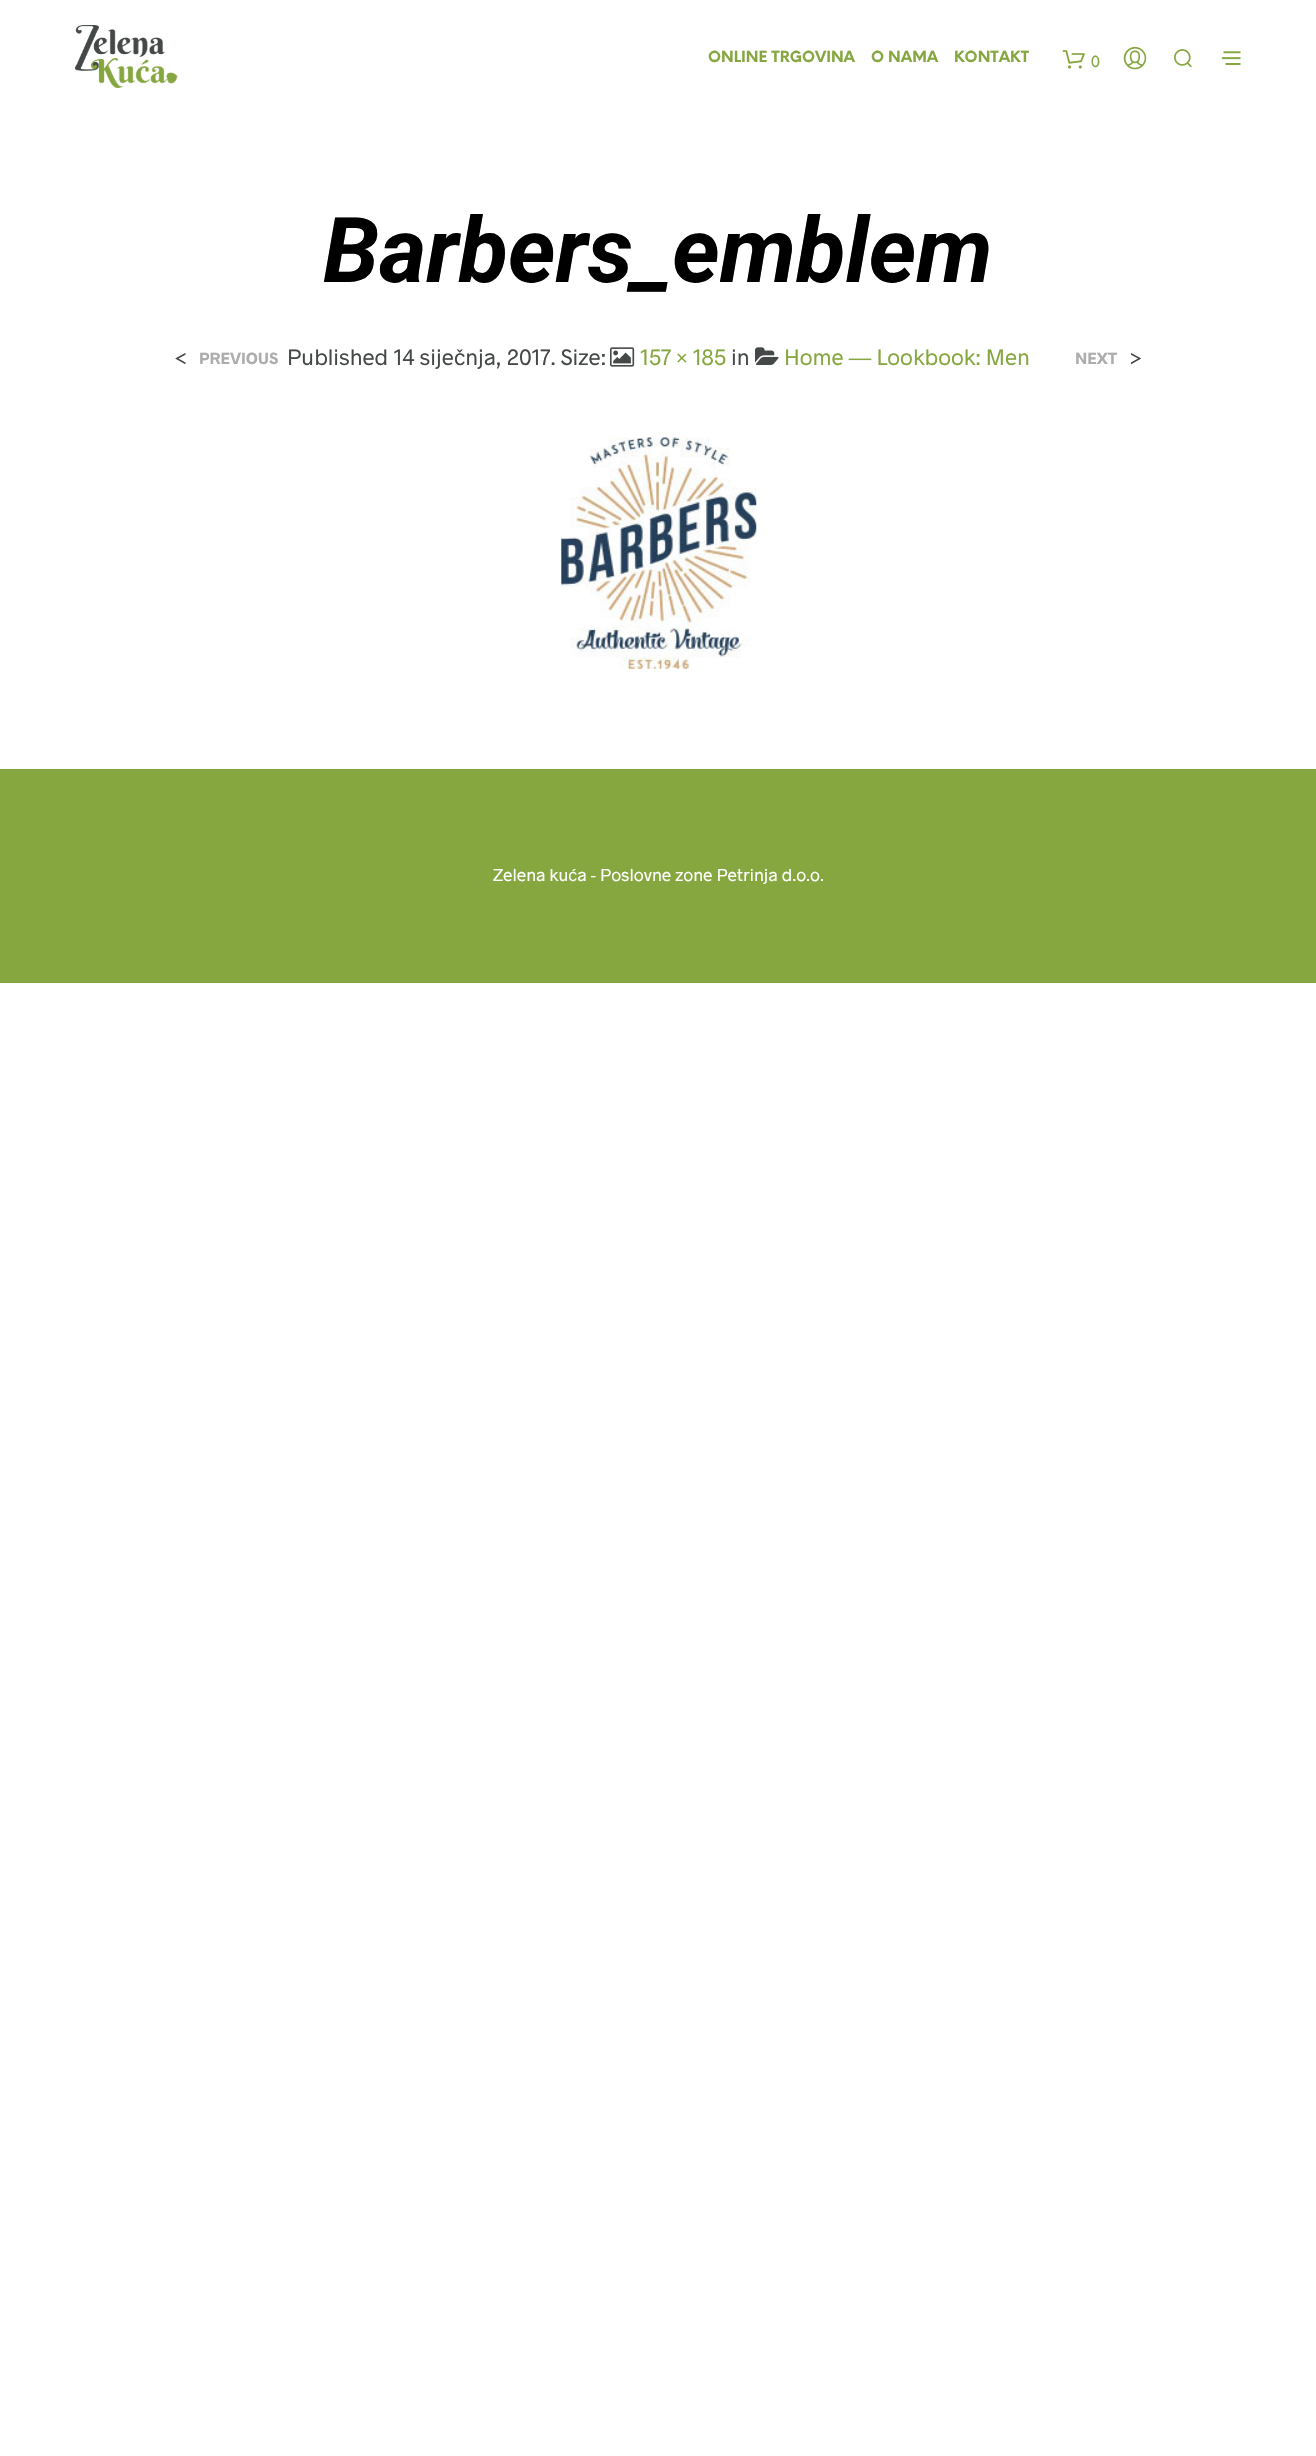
#include "include/core/SkBlurTypes.h"
#include "include/core/SkCanvas.h"
#include "include/core/SkData.h"
#include "include/core/SkFont.h"
#include "include/core/SkFontMgr.h"
#include "include/core/SkImage.h"
#include "include/core/SkMaskFilter.h"
#include "include/core/SkPaint.h"
#include "include/core/SkPathBuilder.h"
#include "include/core/SkTextBlob.h"
#include "include/effects/SkDashPathEffect.h"
#include "include/effects/SkGradientShader.h"
#include "include/utils/SkParsePath.h"

extern sk_sp<SkFontMgr> fontMgr;

void draw(SkCanvas* canvas) {
    SkPaint p;
    p.setAntiAlias(true);
    auto font = [&](const char* family, int weight, float size, bool italic = false) {
        SkFontStyle style(weight, SkFontStyle::kNormal_Width,
            italic ? SkFontStyle::kItalic_Slant : SkFontStyle::kUpright_Slant);
        SkFont result(fontMgr->matchFamilyStyle(family, style), size);
        result.setSubpixel(true);
        return result;
    };
    auto drawPhoto = [&](const char* path, float l, float t, float r, float b) {
        auto image = SkImages::DeferredFromEncodedData(SkData::MakeFromFileName(path));
        canvas->drawImageRect(image, SkRect::MakeLTRB(l, t, r, b), SkSamplingOptions());
    };
    canvas->clear(0xFFFFFFFF);
    drawPhoto("media/1.png", 75, 25, 178, 88);
    auto font1 = font("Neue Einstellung", 700, 15);
    p.setColor(0xFF86A63F);
    {
        const struct { const char* s; float x, y; } items[] = {
            {"ONLINE TRGOVINA", 708, 62},
            {"O NAMA", 871, 62},
            {"KONTAKT", 954, 62},
        };
        for (auto [s, x, y] : items) {
            canvas->drawString(s, x, y, font1, p);
        }
    }
    drawPhoto("media/2.png", 1062, 50, 1085, 69);
    auto font2 = font("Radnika", 400, 16.25f);
    canvas->drawString("0", 1091, 67, font2, p);
    drawPhoto("media/3.png", 1123, 46, 1147, 70);
    drawPhoto("media/4.png", 1174, 49, 1192, 68);
    drawPhoto("media/5.png", 1221, 51, 1241, 65);
    auto font3 = font("Roboto", 700, 90.75f, true);
    p.setColor(0xFF000000);
    canvas->drawString("Barbers_emblem", 323, 282, font3, p);
    auto font4 = font("Radnika", 400, 22.5f);
    p.setColor(0xFF454848);
    canvas->drawString("Published 14 siječnja, 2017. Size:", 287, 365, font4, p);
    drawPhoto("media/6.png", 610, 347, 635, 367);
    p.setColor(0xFF86A63F);
    canvas->drawString("157 × 185", 640, 365, font4, p);
    p.setColor(0xFF454848);
    canvas->drawString("in", 731, 365, font4, p);
    drawPhoto("media/7.png", 755, 347, 779, 365);
    p.setColor(0xFF86A63F);
    canvas->drawString("Home — Lookbook: Men", 784, 365, font4, p);
    p.setColor(0xFF454848);
    canvas->drawString("<", 174, 366, font4, p);
    auto font5 = font("Radnika", 700, 16.25f);
    p.setColor(0xFFADADAD);
    canvas->drawString("PREVIOUS", 199, 364, font5, p);
    canvas->drawString("NEXT", 1075, 364, font5, p);
    p.setColor(0xFF454848);
    canvas->drawString(">", 1129, 366, font4, p);
    drawPhoto("media/8.png", 560, 437, 757, 669);
    p.setColor(0xFF86A63F);
    canvas->drawRect(SkRect::MakeLTRB(0, 769, 1316, 983), p);
    auto font6 = font("Radnika", 400, 17.5f);
    p.setColor(0xFFFFFFFF);
    canvas->drawString("Zelena kuća - Poslovne zone Petrinja d.o.o.", 493, 881, font6, p);
}
